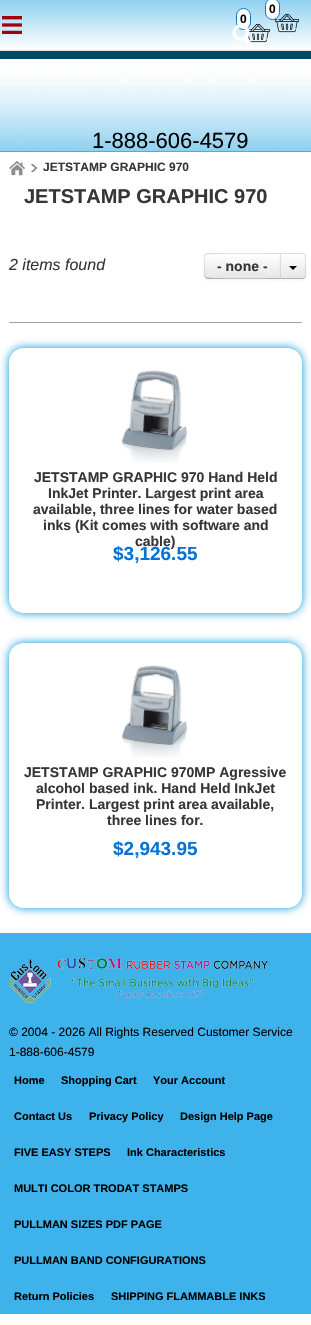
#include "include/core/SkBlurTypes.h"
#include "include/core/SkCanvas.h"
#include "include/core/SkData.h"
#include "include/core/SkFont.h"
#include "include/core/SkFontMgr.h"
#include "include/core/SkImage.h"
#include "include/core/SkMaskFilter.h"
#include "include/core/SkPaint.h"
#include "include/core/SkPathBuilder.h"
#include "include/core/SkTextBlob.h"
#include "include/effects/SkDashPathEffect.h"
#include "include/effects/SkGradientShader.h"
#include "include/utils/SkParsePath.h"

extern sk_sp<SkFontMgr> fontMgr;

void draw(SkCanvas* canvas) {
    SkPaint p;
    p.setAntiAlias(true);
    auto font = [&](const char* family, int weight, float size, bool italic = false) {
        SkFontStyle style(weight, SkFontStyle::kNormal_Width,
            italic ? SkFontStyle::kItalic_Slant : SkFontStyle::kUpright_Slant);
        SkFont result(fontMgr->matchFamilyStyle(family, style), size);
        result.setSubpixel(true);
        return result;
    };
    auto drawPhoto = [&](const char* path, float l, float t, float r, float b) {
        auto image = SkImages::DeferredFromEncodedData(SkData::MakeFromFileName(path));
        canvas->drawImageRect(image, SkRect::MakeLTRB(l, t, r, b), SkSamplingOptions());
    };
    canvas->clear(0xFFFFFFFF);
    {
        const SkColor colors[] = {0xFF8FD1EF, 0xFFFFFFFF};
        const float stops[] = {0, 1};
        const SkPoint ends[] = {{156, 0}, {156, 50}};
        p.setShader(SkGradientShader::MakeLinear(ends, colors, stops, 2, SkTileMode::kClamp));
        p.setAlpha(255);
    }
    canvas->drawRect(SkRect::MakeLTRB(0, 0, 311, 49), p);
    p.setShader(nullptr);
    p.setColor(0xFFE1E0E0);
    canvas->drawRect(SkRect::MakeLTRB(0, 50, 311, 51), p);
    drawPhoto("media/1.png", 2, 16, 22, 34);
    drawPhoto("media/2.png", 275, 14, 299, 33);
    p.setColor(0xFFFFFFFF);
    canvas->drawRoundRect(SkRect::MakeLTRB(265.5f, -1.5f, 279.5f, 19.5f), 7, 7, p);
    p.setStyle(SkPaint::kStroke_Style);
    p.setStrokeWidth(1);
    p.setColor(0xFF0774D5);
    canvas->drawRoundRect(SkRect::MakeLTRB(265.5f, -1.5f, 279.5f, 19.5f), 7, 7, p);
    auto font1 = font("Liberation Sans", 700, 12);
    p.setStyle(SkPaint::kFill_Style);
    p.setColor(0xFF000000);
    canvas->drawString("0", 269, 13, font1, p);
    drawPhoto("media/3.png", 248, 24, 270, 43);
    p.setColor(0xFFFFFFFF);
    canvas->drawRoundRect(SkRect::MakeLTRB(236.5f, 8.5f, 250.5f, 29.5f), 7, 7, p);
    p.setStyle(SkPaint::kStroke_Style);
    p.setColor(0xFF0774D5);
    canvas->drawRoundRect(SkRect::MakeLTRB(236.5f, 8.5f, 250.5f, 29.5f), 7, 7, p);
    p.setStyle(SkPaint::kFill_Style);
    p.setColor(0xFF000000);
    canvas->drawString("0", 240, 23, font1, p);
    drawPhoto("media/4.png", 232, 24, 254, 48);
    drawPhoto("media/5.png", 0, 51, 311, 151);
    p.setColor(0xFF3EB2EA);
    canvas->drawRect(SkRect::MakeLTRB(0, 151, 311, 152), p);
    auto font2 = font("Liberation Sans", 400, 22);
    p.setColor(0xFF000000);
    canvas->drawString("1-888-606-4579", 92, 148, font2, p);
    drawPhoto("media/6.png", 9, 161, 25, 176);
    drawPhoto("media/7.png", 30, 164, 38, 172);
    p.setColor(0xFF363636);
    canvas->drawString("JETSTAMP GRAPHIC 970", 43, 171, font1, p);
    auto font3 = font("Liberation Sans", 700, 20);
    canvas->drawString("JETSTAMP GRAPHIC 970", 24, 203, font3, p);
    auto font4 = font("Liberation Sans", 400, 16, true);
    canvas->drawString("2 items found", 9, 270, font4, p);
    p.setColor(0x0D000000);
    p.setMaskFilter(SkMaskFilter::MakeBlur(kNormal_SkBlurStyle, 1));
    canvas->drawRoundRect(SkRect::MakeLTRB(204, 254, 281, 280), 4, 4, p);
    p.setMaskFilter(nullptr);
    p.setColor(0xFFF5F5F5);
    canvas->drawPath(SkPathBuilder().moveTo(208, 253).lineTo(281, 253).lineTo(281, 279).lineTo(208, 279).cubicTo(206, 279, 204, 277, 204, 275).lineTo(204, 257).cubicTo(204, 255, 206, 253, 208, 253).close().detach(), p);
    canvas->save();
    canvas->clipPath(SkPathBuilder().moveTo(208, 253).lineTo(281, 253).lineTo(281, 279).lineTo(208, 279).cubicTo(206, 279, 204, 277, 204, 275).lineTo(204, 257).cubicTo(204, 255, 206, 253, 208, 253).close().detach(), true);
    {
        const SkColor colors[] = {0xFFFFFFFF, 0xFFE6E6E6};
        const float stops[] = {0, 1};
        const SkPoint ends[] = {{243, 254}, {243, 278}};
        p.setShader(SkGradientShader::MakeLinear(ends, colors, stops, 2, SkTileMode::kClamp));
        p.setAlpha(255);
    }
    canvas->drawRect(SkRect::MakeLTRB(204, 254, 280, 278), p);
    canvas->restore();
    p.setShader(nullptr);
    p.setColor(0x1A000000);
    canvas->drawPath(SkPathBuilder().moveTo(208, 253).lineTo(205, 254).lineTo(206, 255).cubicTo(207, 253, 272, 254, 280, 254).lineTo(281, 253).close().detach(), p);
    p.setColor(0xFFB3B3B3);
    canvas->drawPath(SkPathBuilder().moveTo(281, 279).lineTo(280, 278).cubicTo(272, 278, 207, 279, 206, 277).lineTo(205, 278).lineTo(208, 279).close().detach(), p);
    p.setColor(0x1A000000);
    canvas->drawPath(SkPathBuilder().moveTo(204, 257).lineTo(204, 275).cubicTo(204, 276, 204.5f, 277, 205, 278).lineTo(206, 277).cubicTo(204, 275.5f, 205, 268, 205, 266).cubicTo(205, 264, 204, 256.5f, 206, 255).lineTo(205, 254).cubicTo(204.5f, 255, 204, 256, 204, 257).close().detach(), p);
    auto font5 = font("Liberation Sans", 700, 14);
    p.setColor(0xFF363636);
    canvas->drawString("- none -", 217, 271, font5, p);
    p.setColor(0x0D000000);
    p.setMaskFilter(SkMaskFilter::MakeBlur(kNormal_SkBlurStyle, 1));
    canvas->drawRoundRect(SkRect::MakeLTRB(280, 254, 306, 280), 4, 4, p);
    p.setMaskFilter(nullptr);
    p.setColor(0xFFF5F5F5);
    canvas->drawPath(SkPathBuilder().moveTo(280, 253).lineTo(302, 253).cubicTo(304, 253, 306, 255, 306, 257).lineTo(306, 275).cubicTo(306, 277, 304, 279, 302, 279).lineTo(280, 279).close().detach(), p);
    canvas->save();
    canvas->clipPath(SkPathBuilder().moveTo(280, 253).lineTo(302, 253).cubicTo(304, 253, 306, 255, 306, 257).lineTo(306, 275).cubicTo(306, 277, 304, 279, 302, 279).lineTo(280, 279).close().detach(), true);
    {
        const SkColor colors[] = {0xFFFFFFFF, 0xFFE6E6E6};
        const float stops[] = {0, 1};
        const SkPoint ends[] = {{293, 254}, {293, 278}};
        p.setShader(SkGradientShader::MakeLinear(ends, colors, stops, 2, SkTileMode::kClamp));
        p.setAlpha(255);
    }
    canvas->drawRect(SkRect::MakeLTRB(280, 254, 306, 278), p);
    canvas->restore();
    p.setShader(nullptr);
    p.setColor(0x1FFFFFFF);
    canvas->drawPath(SkPathBuilder(SkPathFillType::kEvenOdd).moveTo(281, 254).lineTo(281, 278).lineTo(282, 278).lineTo(282, 254).close().moveTo(300, 254).lineTo(303, 254).close().moveTo(303, 278).lineTo(300, 278).close().detach(), p);
    p.setColor(0x1A000000);
    canvas->drawPath(SkPathBuilder().moveTo(280, 253).lineTo(281, 254).lineTo(302, 254).cubicTo(303, 254, 303.5f, 254.5f, 304, 255).lineTo(305, 254).cubicTo(304, 253.5f, 303, 253, 302, 253).close().detach(), p);
    canvas->drawPath(SkPathBuilder().moveTo(306, 275).lineTo(306, 257).cubicTo(306, 256, 305.5f, 255, 305, 254).lineTo(304, 255).cubicTo(304.5f, 255.5f, 305, 256, 305, 257).lineTo(305, 275).cubicTo(305, 276, 304.5f, 276.5f, 304, 277).lineTo(305, 278).cubicTo(305.5f, 277, 306, 276, 306, 275).close().detach(), p);
    p.setColor(0xFFB3B3B3);
    canvas->drawPath(SkPathBuilder().moveTo(302, 279).cubicTo(303, 279, 304, 278.5f, 305, 278).lineTo(304, 277).cubicTo(303.5f, 277.5f, 303, 278, 302, 278).lineTo(281, 278).lineTo(280, 279).close().detach(), p);
    p.setColor(0x1A000000);
    canvas->drawPath(SkPathBuilder().moveTo(280, 253).lineTo(280, 279).lineTo(281, 278).lineTo(281, 254).close().detach(), p);
    p.setColor(0xFF000000);
    canvas->drawPath(SkPathBuilder().moveTo(289, 266).lineTo(297, 266).lineTo(293, 270).close().detach(), p);
    p.setColor(0xFFA2A2A2);
    canvas->drawRect(SkRect::MakeLTRB(9, 322, 302, 323), p);
    canvas->save();
    canvas->clipPath(SkPathBuilder(SkPathFillType::kEvenOdd).moveTo(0, 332).lineTo(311, 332).lineTo(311, 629).lineTo(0, 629).close().moveTo(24, 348).lineTo(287, 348).cubicTo(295.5f, 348, 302, 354.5f, 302, 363).lineTo(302, 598).cubicTo(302, 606.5f, 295.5f, 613, 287, 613).lineTo(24, 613).cubicTo(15.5f, 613, 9, 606.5f, 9, 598).lineTo(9, 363).cubicTo(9, 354.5f, 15.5f, 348, 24, 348).close().detach(), true);
    p.setColor(0xFF0095DA);
    p.setMaskFilter(SkMaskFilter::MakeBlur(kNormal_SkBlurStyle, 5));
    canvas->drawRoundRect(SkRect::MakeLTRB(9, 348, 302, 613), 15, 15, p);
    p.setMaskFilter(nullptr);
    canvas->restore();
    drawPhoto("media/8.png", 121, 370, 187, 463);
    p.setColor(0xFF363636);
    {
        const struct { const char* s; float x, y; } items[] = {
            {"JETSTAMP GRAPHIC 970 Hand Held", 34, 482},
            {"InkJet Printer. Largest print area", 48, 498},
            {"available, three lines for water based", 33, 514},
            {"inks (Kit comes with software and", 43, 530},
            {"cable)", 135, 546},
        };
        for (auto [s, x, y] : items) {
            canvas->drawString(s, x, y, font5, p);
        }
    }
    auto font6 = font("Liberation Sans", 700, 19);
    p.setColor(0xFF0774D5);
    canvas->drawString("$3,126.55", 113, 560, font6, p);
    canvas->save();
    canvas->clipPath(SkPathBuilder(SkPathFillType::kEvenOdd).moveTo(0, 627).lineTo(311, 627).lineTo(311, 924).lineTo(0, 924).close().moveTo(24, 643).lineTo(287, 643).cubicTo(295.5f, 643, 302, 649.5f, 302, 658).lineTo(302, 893).cubicTo(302, 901.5f, 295.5f, 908, 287, 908).lineTo(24, 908).cubicTo(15.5f, 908, 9, 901.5f, 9, 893).lineTo(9, 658).cubicTo(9, 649.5f, 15.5f, 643, 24, 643).close().detach(), true);
    p.setColor(0xFF0095DA);
    p.setMaskFilter(SkMaskFilter::MakeBlur(kNormal_SkBlurStyle, 5));
    canvas->drawRoundRect(SkRect::MakeLTRB(9, 643, 302, 908), 15, 15, p);
    p.setMaskFilter(nullptr);
    canvas->restore();
    drawPhoto("media/8.png", 121, 665, 187, 758);
    p.setColor(0xFF363636);
    {
        const struct { const char* s; float x, y; } items[] = {
            {"JETSTAMP GRAPHIC 970MP Agressive", 24, 777},
            {"alcohol based ink. Hand Held InkJet", 36, 793},
            {"Printer. Largest print area available,", 36, 809},
            {"three lines for.", 107, 825},
        };
        for (auto [s, x, y] : items) {
            canvas->drawString(s, x, y, font5, p);
        }
    }
    p.setColor(0xFF0774D5);
    canvas->drawString("$2,943.95", 113, 855, font6, p);
    p.setColor(0xFF3EB2EA);
    canvas->drawRect(SkRect::MakeLTRB(0, 933, 311, 1314), p);
    p.setStyle(SkPaint::kStroke_Style);
    p.setColor(0xFFCB8686);
    p.setPathEffect(SkDashPathEffect::Make({{1, 1}}, 0));
    canvas->drawPath(SkPathBuilder().moveTo(-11, 933.5f).lineTo(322, 933.5f).detach(), p);
    p.setPathEffect(nullptr);
    drawPhoto("media/9.png", 9, 957, 268, 1003);
    auto font7 = font("Liberation Sans", 400, 12);
    p.setStyle(SkPaint::kFill_Style);
    p.setColor(0xFF000000);
    canvas->drawString("© 2004 - 2026 All Rights Reserved Customer Service", 9, 1036, font7, p);
    canvas->drawString("1-888-606-4579", 9, 1056, font7, p);
    auto font8 = font("Liberation Sans", 700, 11);
    {
        const struct { const char* s; float x, y; } items[] = {
            {"Home", 14, 1084},
            {"Shopping Cart", 61, 1084},
            {"Your Account", 153, 1084},
            {"Contact Us", 14, 1120},
            {"Privacy Policy", 89, 1120},
            {"Design Help Page", 180, 1120},
            {"FIVE EASY STEPS", 14, 1156},
            {"Ink Characteristics", 127, 1156},
            {"MULTI COLOR TRODAT STAMPS", 14, 1192},
            {"PULLMAN SIZES PDF PAGE", 14, 1228},
            {"PULLMAN BAND CONFIGURATIONS", 14, 1264},
            {"Return Policies", 14, 1300},
            {"SHIPPING FLAMMABLE INKS", 111, 1300},
        };
        for (auto [s, x, y] : items) {
            canvas->drawString(s, x, y, font8, p);
        }
    }
}
